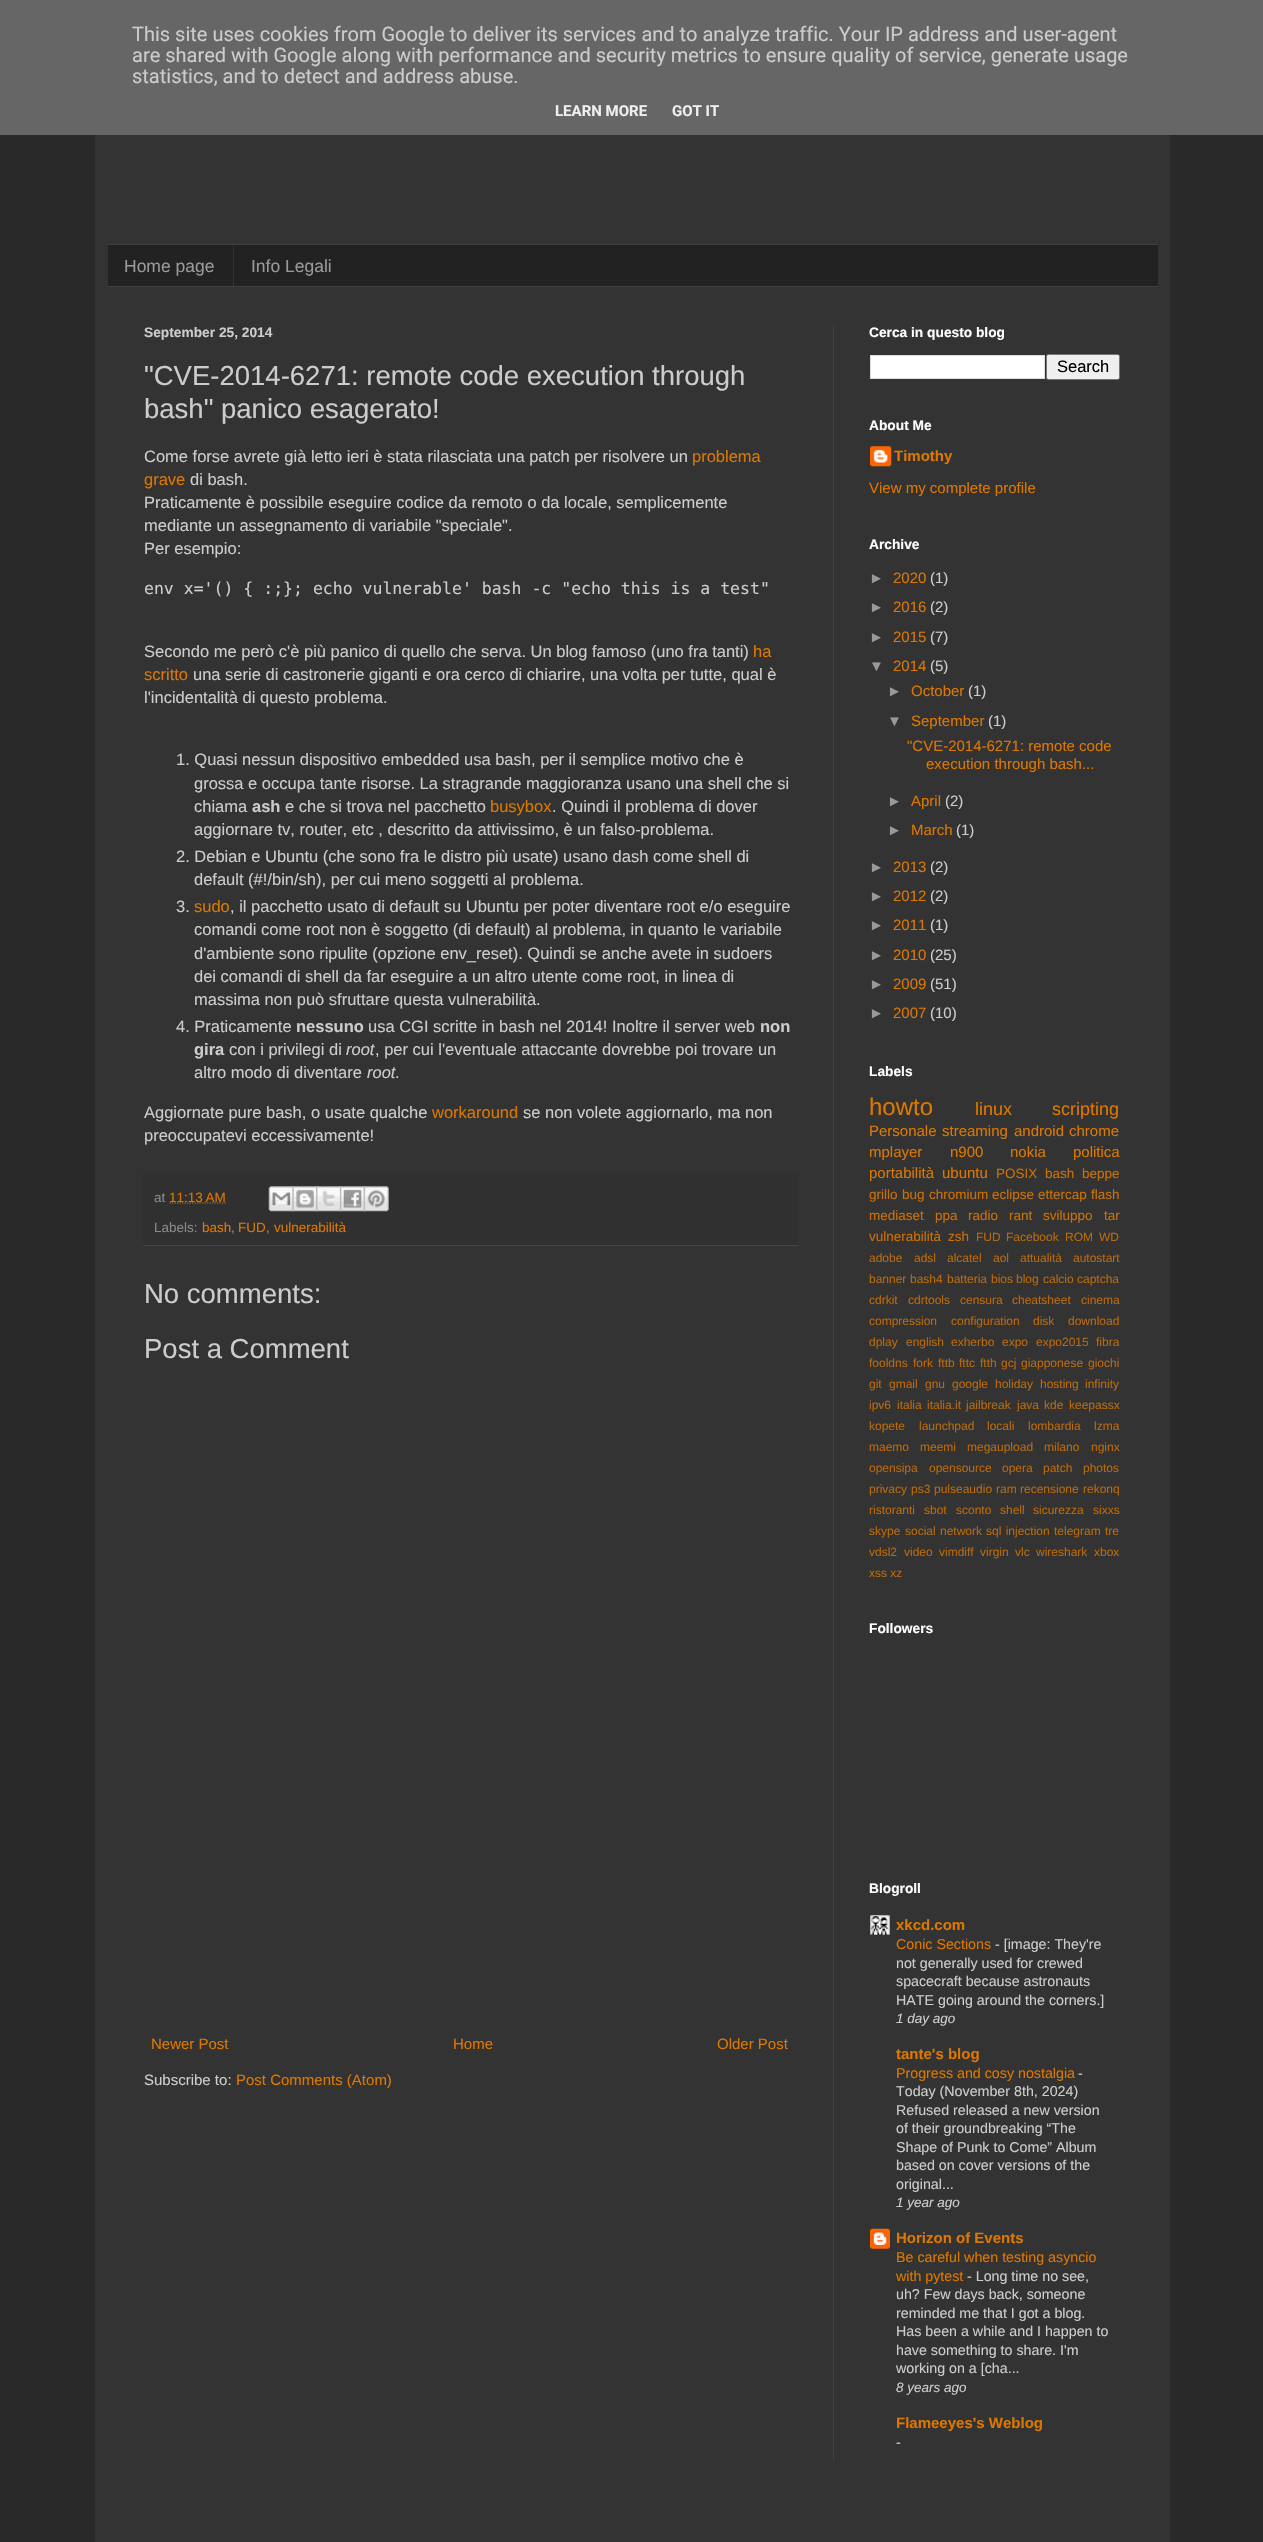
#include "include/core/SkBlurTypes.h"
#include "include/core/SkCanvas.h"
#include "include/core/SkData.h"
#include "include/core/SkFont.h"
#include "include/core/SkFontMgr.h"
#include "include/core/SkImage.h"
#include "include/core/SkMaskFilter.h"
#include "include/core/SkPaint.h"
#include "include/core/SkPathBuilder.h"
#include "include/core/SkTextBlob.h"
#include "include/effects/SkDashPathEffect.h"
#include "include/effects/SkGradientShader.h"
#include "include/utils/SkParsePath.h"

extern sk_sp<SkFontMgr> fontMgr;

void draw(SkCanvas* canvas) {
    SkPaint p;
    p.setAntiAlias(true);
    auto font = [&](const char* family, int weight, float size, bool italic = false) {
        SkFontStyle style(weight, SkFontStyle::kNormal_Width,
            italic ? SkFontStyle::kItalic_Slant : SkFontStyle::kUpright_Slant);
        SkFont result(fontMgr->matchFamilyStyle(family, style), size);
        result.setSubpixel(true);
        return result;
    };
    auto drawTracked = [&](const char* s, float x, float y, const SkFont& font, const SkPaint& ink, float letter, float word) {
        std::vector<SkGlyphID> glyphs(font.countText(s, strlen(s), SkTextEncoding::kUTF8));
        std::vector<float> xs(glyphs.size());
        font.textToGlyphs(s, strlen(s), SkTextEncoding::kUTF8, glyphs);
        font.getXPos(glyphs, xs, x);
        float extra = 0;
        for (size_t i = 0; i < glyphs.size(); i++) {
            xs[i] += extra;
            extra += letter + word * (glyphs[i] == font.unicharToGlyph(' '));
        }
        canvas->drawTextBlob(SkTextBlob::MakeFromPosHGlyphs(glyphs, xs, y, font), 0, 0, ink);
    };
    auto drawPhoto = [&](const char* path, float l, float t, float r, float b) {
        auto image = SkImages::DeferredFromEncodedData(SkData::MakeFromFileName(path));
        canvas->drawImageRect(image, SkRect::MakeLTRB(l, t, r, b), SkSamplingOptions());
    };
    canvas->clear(0xFF292929);
    p.setColor(0xFF666666);
    canvas->drawRect(SkRect::MakeLTRB(0, 0, 1263, 135), p);
    auto font1 = font("Roboto", 400, 20);
    p.setColor(0xFFCCCCCC);
    {
        const struct { const char* s; float x, y; } items[] = {
            {"This site uses cookies from Google to deliver its services and to analyze traffic. Your IP address and user-agent", 132, 41},
            {"are shared with Google along with performance and security metrics to ensure quality of service, generate usage", 132, 62},
            {"statistics, and to detect and address abuse.", 132, 83},
        };
        for (auto [s, x, y] : items) {
            canvas->drawString(s, x, y, font1, p);
        }
    }
    auto font2 = font("Roboto", 700, 15);
    p.setColor(0xFFEEEEEE);
    canvas->drawString("LEARN MORE", 555, 116, font2, p);
    canvas->drawString("GOT IT", 672, 116, font2, p);
    {
        const struct { float l, t, r, b; SkColor color; } items[] = {
            {95, 135, 1170, 2542, 0xFF333333},
            {108, 245, 1158, 286, 0xFF222222},
            {108, 244, 1158, 245, 0xFF404040},
            {108, 286, 1158, 287, 0xFF404040},
        };
        for (auto [l, t, r, b, color] : items) {
            p.setColor(color);
            canvas->drawRect(SkRect::MakeLTRB(l, t, r, b), p);
        }
    }
    auto font3 = font("Liberation Sans", 400, 17.5f);
    p.setColor(0xFF999999);
    canvas->drawString("Home page", 124, 272, font3, p);
    p.setColor(0xFF333333);
    canvas->drawRect(SkRect::MakeLTRB(233, 245, 234, 286), p);
    p.setColor(0xFF999999);
    canvas->drawString("Info Legali", 251, 272, font3, p);
    p.setColor(0xFF404040);
    canvas->drawRect(SkRect::MakeLTRB(833, 325, 834, 2461), p);
    auto font4 = font("Liberation Sans", 700, 13.75f);
    p.setColor(0xFFCCCCCC);
    canvas->drawString("September 25, 2014", 144, 337, font4, p);
    auto font5 = font("Liberation Sans", 400, 27.5f);
    canvas->drawString("\"CVE-2014-6271: remote code execution through", 144, 385, font5, p);
    canvas->drawString("bash\" panico esagerato!", 144, 418, font5, p);
    auto font6 = font("Liberation Sans", 400, 16.5f);
    canvas->drawString("Come forse avrete già letto ieri è stata rilasciata una patch per risolvere un", 144, 462, font6, p);
    p.setColor(0xFFDD7700);
    canvas->drawString("problema", 692, 462, font6, p);
    canvas->drawString("grave", 144, 485, font6, p);
    p.setColor(0xFFCCCCCC);
    {
        const struct { const char* s; float x, y; } items[] = {
            {"di bash.", 190, 485},
            {"Praticamente è possibile eseguire codice da remoto o da locale, semplicemente", 144, 508},
            {"mediante un assegnamento di variabile \"speciale\".", 144, 531},
            {"Per esempio:", 144, 554},
        };
        for (auto [s, x, y] : items) {
            canvas->drawString(s, x, y, font6, p);
        }
    }
    auto font7 = font("DejaVu Sans Mono", 400, 16.5f);
    canvas->drawString("env x='() { :;}; echo vulnerable' bash -c \"echo this is a test\"", 144, 594, font7, p);
    canvas->drawString("Secondo me però c'è più panico di quello che serva. Un blog famoso (uno fra tanti)", 144, 657, font6, p);
    p.setColor(0xFFDD7700);
    canvas->drawString("ha", 753, 657, font6, p);
    canvas->drawString("scritto", 144, 680, font6, p);
    p.setColor(0xFFCCCCCC);
    {
        const struct { const char* s; float x, y; } items[] = {
            {"una serie di castronerie giganti e ora cerco di chiarire, una volta per tutte, qual è", 193, 680},
            {"l'incidentalità di questo problema.", 144, 703},
            {"1. Quasi nessun dispositivo embedded usa bash, per il semplice motivo che è", 176, 765},
            {"grossa e occupa tante risorse. La stragrande maggioranza usano una shell che si", 194, 789},
            {"chiama", 194, 812},
        };
        for (auto [s, x, y] : items) {
            canvas->drawString(s, x, y, font6, p);
        }
    }
    auto font8 = font("Liberation Sans", 700, 16.5f);
    canvas->drawString("ash", 252, 812, font8, p);
    canvas->drawString("e che si trova nel pacchetto", 285, 812, font6, p);
    p.setColor(0xFFDD7700);
    canvas->drawString("busybox", 490, 812, font6, p);
    p.setColor(0xFFCCCCCC);
    {
        const struct { const char* s; float x, y; } items[] = {
            {". Quindi il problema di dover", 552, 812},
            {"aggiornare tv, router, etc , descritto da attivissimo, è un falso-problema.", 194, 835},
            {"2. Debian e Ubuntu (che sono fra le distro più usate) usano dash come shell di", 176, 862},
            {"default (#!/bin/sh), per cui meno soggetti al problema.", 194, 885},
            {"3.", 176, 912},
        };
        for (auto [s, x, y] : items) {
            canvas->drawString(s, x, y, font6, p);
        }
    }
    p.setColor(0xFFDD7700);
    canvas->drawString("sudo", 194, 912, font6, p);
    p.setColor(0xFFCCCCCC);
    {
        const struct { const char* s; float x, y; } items[] = {
            {", il pacchetto usato di default su Ubuntu per poter diventare root e/o eseguire", 230, 912},
            {"comandi come root non è soggetto (di default) al problema, in quanto le variabile", 194, 935},
            {"d'ambiente sono ripulite (opzione env_reset). Quindi se anche avete in sudoers", 194, 959},
            {"dei comandi di shell da far eseguire a un altro utente come root, in linea di", 194, 982},
            {"massima non può sfruttare questa vulnerabilità.", 194, 1005},
            {"4. Praticamente", 176, 1032},
        };
        for (auto [s, x, y] : items) {
            canvas->drawString(s, x, y, font6, p);
        }
    }
    canvas->drawString("nessuno", 296, 1032, font8, p);
    canvas->drawString("usa CGI scritte in bash nel 2014! Inoltre il server web", 368, 1032, font6, p);
    canvas->drawString("non", 760, 1032, font8, p);
    canvas->drawString("gira", 194, 1055, font8, p);
    canvas->drawString("con i privilegi di", 229, 1055, font6, p);
    auto font9 = font("Liberation Sans", 400, 16.5f, true);
    canvas->drawString("root", 346, 1055, font9, p);
    canvas->drawString(", per cui l'eventuale attaccante dovrebbe poi trovare un", 375, 1055, font6, p);
    canvas->drawString("altro modo di diventare", 194, 1078, font6, p);
    canvas->drawString("root", 367, 1078, font9, p);
    canvas->drawString(".", 395, 1078, font6, p);
    canvas->drawString("Aggiornate pure bash, o usate qualche", 144, 1118, font6, p);
    p.setColor(0xFFDD7700);
    canvas->drawString("workaround", 432, 1118, font6, p);
    p.setColor(0xFFCCCCCC);
    canvas->drawString("se non volete aggiornarlo, ma non", 523, 1118, font6, p);
    canvas->drawString("preoccupatevi eccessivamente!", 144, 1141, font6, p);
    p.setColor(0xFF303030);
    canvas->drawRect(SkRect::MakeLTRB(143, 1173, 798, 1245), p);
    p.setColor(0xFF444444);
    canvas->drawRect(SkRect::MakeLTRB(143, 1245, 798, 1246), p);
    auto font10 = font("Liberation Sans", 400, 13.5f);
    p.setColor(0xFF888888);
    canvas->drawString("at", 154, 1202, font10, p);
    p.setStyle(SkPaint::kStroke_Style);
    p.setStrokeWidth(1.2f);
    p.setColor(0xFFDD7700);
    p.setPathEffect(SkDashPathEffect::Make({{1.25f, 1.25f}}, 0));
    canvas->drawPath(SkPathBuilder().moveTo(169.5f, 1203).lineTo(226, 1203).detach(), p);
    p.setPathEffect(nullptr);
    p.setStyle(SkPaint::kFill_Style);
    canvas->drawString("11:13 AM", 169, 1202, font10, p);
    drawPhoto("media/1.png", 268, 1186, 294, 1212);
    drawPhoto("media/2.png", 292, 1186, 318, 1212);
    drawPhoto("media/3.png", 316, 1186, 342, 1212);
    drawPhoto("media/4.png", 340, 1186, 365, 1212);
    drawPhoto("media/5.png", 363, 1186, 389, 1212);
    p.setColor(0xFF888888);
    canvas->drawString("Labels:", 154, 1232, font10, p);
    p.setColor(0xFFDD7700);
    canvas->drawString("bash", 202, 1232, font10, p);
    p.setColor(0xFF888888);
    canvas->drawString(",", 231, 1232, font10, p);
    p.setColor(0xFFDD7700);
    canvas->drawString("FUD", 238, 1232, font10, p);
    p.setColor(0xFF888888);
    canvas->drawString(",", 266, 1232, font10, p);
    p.setColor(0xFFDD7700);
    canvas->drawString("vulnerabilità", 274, 1232, font10, p);
    p.setColor(0xFFCCCCCC);
    canvas->drawString("No comments:", 144, 1303, font5, p);
    canvas->drawString("Post a Comment", 144, 1358, font5, p);
    auto font11 = font("Liberation Sans", 400, 15);
    p.setColor(0xFFDD7700);
    {
        const struct { const char* s; float x, y; } items[] = {
            {"Newer Post", 151, 2049},
            {"Home", 453, 2049},
            {"Older Post", 717, 2049},
        };
        for (auto [s, x, y] : items) {
            canvas->drawString(s, x, y, font11, p);
        }
    }
    p.setColor(0xFFCCCCCC);
    canvas->drawString("Subscribe to:", 144, 2085, font11, p);
    p.setColor(0xFFDD7700);
    canvas->drawString("Post Comments (Atom)", 236, 2085, font11, p);
    p.setColor(0xFFFFFFFF);
    canvas->drawString("Cerca in questo blog", 869, 337, font4, p);
    canvas->drawRect(SkRect::MakeLTRB(870.5f, 355.5f, 1044.5f, 378.5f), p);
    p.setStyle(SkPaint::kStroke_Style);
    p.setStrokeWidth(1);
    p.setColor(0xFFDDDDDD);
    canvas->drawRect(SkRect::MakeLTRB(870.5f, 355.5f, 1044.5f, 378.5f), p);
    p.setStyle(SkPaint::kFill_Style);
    p.setColor(0xFFEFEFEF);
    canvas->drawRoundRect(SkRect::MakeLTRB(1046.5f, 354.5f, 1119.5f, 379.5f), 2, 2, p);
    p.setStyle(SkPaint::kStroke_Style);
    p.setColor(0xFF767676);
    canvas->drawRoundRect(SkRect::MakeLTRB(1046.5f, 354.5f, 1119.5f, 379.5f), 2, 2, p);
    p.setStyle(SkPaint::kFill_Style);
    p.setColor(0xFF000000);
    canvas->drawString("Search", 1057, 372, font6, p);
    p.setColor(0xFFFFFFFF);
    canvas->drawString("About Me", 869, 430, font4, p);
    drawPhoto("media/6.png", 870, 446, 892, 467);
    auto font12 = font("Liberation Sans", 700, 15);
    p.setColor(0xFFDD7700);
    canvas->drawString("Timothy", 894, 461, font12, p);
    canvas->drawString("View my complete profile", 869, 493, font11, p);
    p.setColor(0xFFFFFFFF);
    canvas->drawString("Archive", 869, 549, font4, p);
    p.setColor(0xFF999999);
    canvas->drawString("►", 869, 583, font11, p);
    p.setColor(0xFFDD7700);
    canvas->drawString("2020", 893, 583, font11, p);
    p.setColor(0xFFCCCCCC);
    canvas->drawString("(1)", 930, 583, font11, p);
    p.setColor(0xFF999999);
    canvas->drawString("►", 869, 612, font11, p);
    p.setColor(0xFFDD7700);
    canvas->drawString("2016", 893, 612, font11, p);
    p.setColor(0xFFCCCCCC);
    canvas->drawString("(2)", 930, 612, font11, p);
    p.setColor(0xFF999999);
    canvas->drawString("►", 869, 642, font11, p);
    p.setColor(0xFFDD7700);
    canvas->drawString("2015", 893, 642, font11, p);
    p.setColor(0xFFCCCCCC);
    canvas->drawString("(7)", 930, 642, font11, p);
    p.setColor(0xFF999999);
    canvas->drawString("▼", 869, 671, font11, p);
    p.setColor(0xFFDD7700);
    canvas->drawString("2014", 893, 671, font11, p);
    p.setColor(0xFFCCCCCC);
    canvas->drawString("(5)", 930, 671, font11, p);
    p.setColor(0xFF999999);
    canvas->drawString("►", 887, 696, font11, p);
    p.setColor(0xFFDD7700);
    canvas->drawString("October", 911, 696, font11, p);
    p.setColor(0xFFCCCCCC);
    canvas->drawString("(1)", 968, 696, font11, p);
    p.setColor(0xFF999999);
    canvas->drawString("▼", 887, 726, font11, p);
    p.setColor(0xFFDD7700);
    canvas->drawString("September", 911, 726, font11, p);
    p.setColor(0xFFCCCCCC);
    canvas->drawString("(1)", 988, 726, font11, p);
    p.setColor(0xFFDD7700);
    canvas->drawString("\"CVE-2014-6271: remote code", 907, 751, font11, p);
    canvas->drawString("execution through bash...", 926, 769, font11, p);
    p.setColor(0xFF999999);
    canvas->drawString("►", 887, 806, font11, p);
    p.setColor(0xFFDD7700);
    canvas->drawString("April", 911, 806, font11, p);
    p.setColor(0xFFCCCCCC);
    canvas->drawString("(2)", 945, 806, font11, p);
    p.setColor(0xFF999999);
    canvas->drawString("►", 887, 835, font11, p);
    p.setColor(0xFFDD7700);
    canvas->drawString("March", 911, 835, font11, p);
    p.setColor(0xFFCCCCCC);
    canvas->drawString("(1)", 956, 835, font11, p);
    p.setColor(0xFF999999);
    canvas->drawString("►", 869, 872, font11, p);
    p.setColor(0xFFDD7700);
    canvas->drawString("2013", 893, 872, font11, p);
    p.setColor(0xFFCCCCCC);
    canvas->drawString("(2)", 930, 872, font11, p);
    p.setColor(0xFF999999);
    canvas->drawString("►", 869, 901, font11, p);
    p.setColor(0xFFDD7700);
    canvas->drawString("2012", 893, 901, font11, p);
    p.setColor(0xFFCCCCCC);
    canvas->drawString("(2)", 930, 901, font11, p);
    p.setColor(0xFF999999);
    canvas->drawString("►", 869, 930, font11, p);
    p.setColor(0xFFDD7700);
    canvas->drawString("2011", 893, 930, font11, p);
    p.setColor(0xFFCCCCCC);
    canvas->drawString("(1)", 930, 930, font11, p);
    p.setColor(0xFF999999);
    canvas->drawString("►", 869, 960, font11, p);
    p.setColor(0xFFDD7700);
    canvas->drawString("2010", 893, 960, font11, p);
    p.setColor(0xFFCCCCCC);
    canvas->drawString("(25)", 930, 960, font11, p);
    p.setColor(0xFF999999);
    canvas->drawString("►", 869, 989, font11, p);
    p.setColor(0xFFDD7700);
    canvas->drawString("2009", 893, 989, font11, p);
    p.setColor(0xFFCCCCCC);
    canvas->drawString("(51)", 930, 989, font11, p);
    p.setColor(0xFF999999);
    canvas->drawString("►", 869, 1018, font11, p);
    p.setColor(0xFFDD7700);
    canvas->drawString("2007", 893, 1018, font11, p);
    p.setColor(0xFFCCCCCC);
    canvas->drawString("(10)", 930, 1018, font11, p);
    p.setColor(0xFFFFFFFF);
    canvas->drawString("Labels", 869, 1076, font4, p);
    auto font13 = font("Liberation Sans", 400, 24);
    p.setColor(0xFFDD7700);
    canvas->drawString("howto", 869, 1115, font13, p);
    auto font14 = font("Liberation Sans", 400, 18);
    canvas->drawString("linux", 975, 1115, font14, p);
    canvas->drawString("scripting", 1052, 1115, font14, p);
    {
        const struct { const char* s; float x, y; } items[] = {
            {"Personale", 869, 1136},
            {"streaming", 942, 1136},
            {"android", 1014, 1136},
            {"chrome", 1069, 1136},
            {"mplayer", 869, 1157},
            {"n900", 950, 1157},
            {"nokia", 1010, 1157},
            {"politica", 1073, 1157},
            {"portabilità", 869, 1178},
            {"ubuntu", 942, 1178},
        };
        for (auto [s, x, y] : items) {
            canvas->drawString(s, x, y, font11, p);
        }
    }
    p.setColor(0xFFCC7005);
    {
        const struct { const char* s; float x, y; } items[] = {
            {"POSIX", 996, 1178},
            {"bash", 1045, 1178},
            {"beppe", 1082, 1178},
            {"grillo", 869, 1199},
            {"bug", 902, 1199},
            {"chromium", 929, 1199},
            {"eclipse", 992, 1199},
            {"ettercap", 1038, 1199},
            {"flash", 1091, 1199},
            {"mediaset", 869, 1220},
            {"ppa", 935, 1220},
            {"radio", 968, 1220},
            {"rant", 1009, 1220},
            {"sviluppo", 1043, 1220},
            {"tar", 1104, 1220},
            {"vulnerabilità", 869, 1241},
            {"zsh", 948, 1241},
        };
        for (auto [s, x, y] : items) {
            canvas->drawString(s, x, y, font10, p);
        }
    }
    auto font15 = font("Liberation Sans", 400, 12);
    p.setColor(0xFFBB690A);
    {
        const struct { const char* s; float x, y; } items[] = {
            {"FUD", 976, 1241},
            {"Facebook", 1006, 1241},
            {"ROM", 1065, 1241},
            {"WD", 1099, 1241},
            {"adobe", 869, 1262},
            {"adsl", 914, 1262},
            {"alcatel", 947, 1262},
            {"aol", 993, 1262},
            {"attualità", 1020, 1262},
            {"autostart", 1073, 1262},
            {"banner", 869, 1283},
            {"bash4", 910, 1283},
            {"batteria", 947, 1283},
            {"bios", 991, 1283},
            {"blog", 1016, 1283},
            {"calcio", 1043, 1283},
            {"captcha", 1077, 1283},
            {"cdrkit", 869, 1304},
            {"cdrtools", 908, 1304},
            {"censura", 960, 1304},
            {"cheatsheet", 1012, 1304},
            {"cinema", 1081, 1304},
            {"compression", 869, 1325},
            {"configuration", 951, 1325},
            {"disk", 1033, 1325},
            {"download", 1068, 1325},
            {"dplay", 869, 1346},
            {"english", 906, 1346},
            {"exherbo", 951, 1346},
            {"expo", 1002, 1346},
            {"expo2015", 1036, 1346},
            {"fibra", 1096, 1346},
            {"fooldns", 869, 1367},
            {"fork", 913, 1367},
            {"fttb", 938, 1367},
            {"fttc", 959, 1367},
            {"ftth", 980, 1367},
            {"gcj", 1001, 1367},
            {"giapponese", 1021, 1367},
            {"giochi", 1088, 1367},
            {"git", 869, 1388},
            {"gmail", 889, 1388},
            {"gnu", 925, 1388},
            {"google", 952, 1388},
            {"holiday", 995, 1388},
            {"hosting", 1040, 1388},
            {"infinity", 1085, 1388},
            {"ipv6", 869, 1409},
            {"italia", 897, 1409},
            {"italia.it", 927, 1409},
            {"jailbreak", 966, 1409},
            {"java", 1017, 1409},
            {"kde", 1044, 1409},
            {"keepassx", 1069, 1409},
            {"kopete", 869, 1430},
            {"launchpad", 919, 1430},
            {"locali", 987, 1430},
            {"lombardia", 1028, 1430},
            {"lzma", 1094, 1430},
            {"maemo", 869, 1451},
            {"meemi", 920, 1451},
            {"megaupload", 967, 1451},
            {"milano", 1044, 1451},
            {"nginx", 1091, 1451},
            {"opensipa", 869, 1472},
            {"opensource", 929, 1472},
            {"opera", 1002, 1472},
            {"patch", 1043, 1472},
            {"photos", 1083, 1472},
            {"privacy", 869, 1493},
            {"ps3", 911, 1493},
            {"pulseaudio", 934, 1493},
            {"ram", 996, 1493},
            {"recensione", 1020, 1493},
            {"rekonq", 1083, 1493},
            {"ristoranti", 869, 1514},
            {"sbot", 924, 1514},
            {"sconto", 956, 1514},
            {"shell", 1000, 1514},
            {"sicurezza", 1033, 1514},
            {"sixxs", 1093, 1514},
            {"skype", 869, 1535},
        };
        for (auto [s, x, y] : items) {
            canvas->drawString(s, x, y, font15, p);
        }
    }
    drawTracked("social network", 905, 1535, font15, p, 0, 1);
    drawTracked("sql injection", 986, 1535, font15, p, 0, 1);
    {
        const struct { const char* s; float x, y; } items[] = {
            {"telegram", 1054, 1535},
            {"tre", 1105, 1535},
            {"vdsl2", 869, 1556},
            {"video", 904, 1556},
            {"vimdiff", 939, 1556},
            {"virgin", 980, 1556},
            {"vlc", 1015, 1556},
            {"wireshark", 1036, 1556},
            {"xbox", 1094, 1556},
            {"xss xz", 869, 1577},
        };
        for (auto [s, x, y] : items) {
            canvas->drawString(s, x, y, font15, p);
        }
    }
    p.setColor(0xFFFFFFFF);
    canvas->drawString("Followers", 869, 1633, font4, p);
    canvas->drawString("Blogroll", 869, 1893, font4, p);
    drawPhoto("media/7.png", 870, 1915, 890, 1935);
    p.setColor(0xFFDD7700);
    canvas->drawString("xkcd.com", 896, 1930, font12, p);
    auto font16 = font("Liberation Sans", 400, 14.25f);
    canvas->drawString("Conic Sections", 896, 1949, font16, p);
    p.setColor(0xFFCCCCCC);
    {
        const struct { const char* s; float x, y; } items[] = {
            {"- [image: They're", 995, 1949},
            {"not generally used for crewed", 896, 1968},
            {"spacecraft because astronauts", 896, 1986},
            {"HATE going around the corners.]", 896, 2005},
        };
        for (auto [s, x, y] : items) {
            canvas->drawString(s, x, y, font16, p);
        }
    }
    auto font17 = font("Liberation Sans", 400, 13.5f, true);
    canvas->drawString("1 day ago", 896, 2023, font17, p);
    p.setColor(0xFFDD7700);
    canvas->drawString("tante's blog", 896, 2059, font12, p);
    canvas->drawString("Progress and cosy nostalgia", 896, 2078, font16, p);
    p.setColor(0xFFCCCCCC);
    {
        const struct { const char* s; float x, y; } items[] = {
            {"-", 1078, 2078},
            {"Today (November 8th, 2024)", 896, 2096},
            {"Refused released a new version", 896, 2115},
            {"of their groundbreaking “The", 896, 2133},
            {"Shape of Punk to Come” Album", 896, 2152},
            {"based on cover versions of the", 896, 2170},
            {"original...", 896, 2189},
        };
        for (auto [s, x, y] : items) {
            canvas->drawString(s, x, y, font16, p);
        }
    }
    canvas->drawString("1 year ago", 896, 2207, font17, p);
    drawPhoto("media/8.png", 870, 2228, 890, 2249);
    p.setColor(0xFFDD7700);
    canvas->drawString("Horizon of Events", 896, 2243, font12, p);
    canvas->drawString("Be careful when testing asyncio", 896, 2262, font16, p);
    canvas->drawString("with pytest", 896, 2281, font16, p);
    p.setColor(0xFFCCCCCC);
    {
        const struct { const char* s; float x, y; } items[] = {
            {"- Long time no see,", 967, 2281},
            {"uh? Few days back, someone", 896, 2299},
            {"reminded me that I got a blog.", 896, 2318},
            {"Has been a while and I happen to", 896, 2336},
            {"have something to share. I'm", 896, 2355},
            {"working on a [cha...", 896, 2373},
        };
        for (auto [s, x, y] : items) {
            canvas->drawString(s, x, y, font16, p);
        }
    }
    canvas->drawString("8 years ago", 896, 2392, font17, p);
    p.setColor(0xFFDD7700);
    canvas->drawString("Flameeyes's Weblog", 896, 2428, font12, p);
    p.setColor(0xFFCCCCCC);
    canvas->drawString("-", 896, 2447, font16, p);
}
